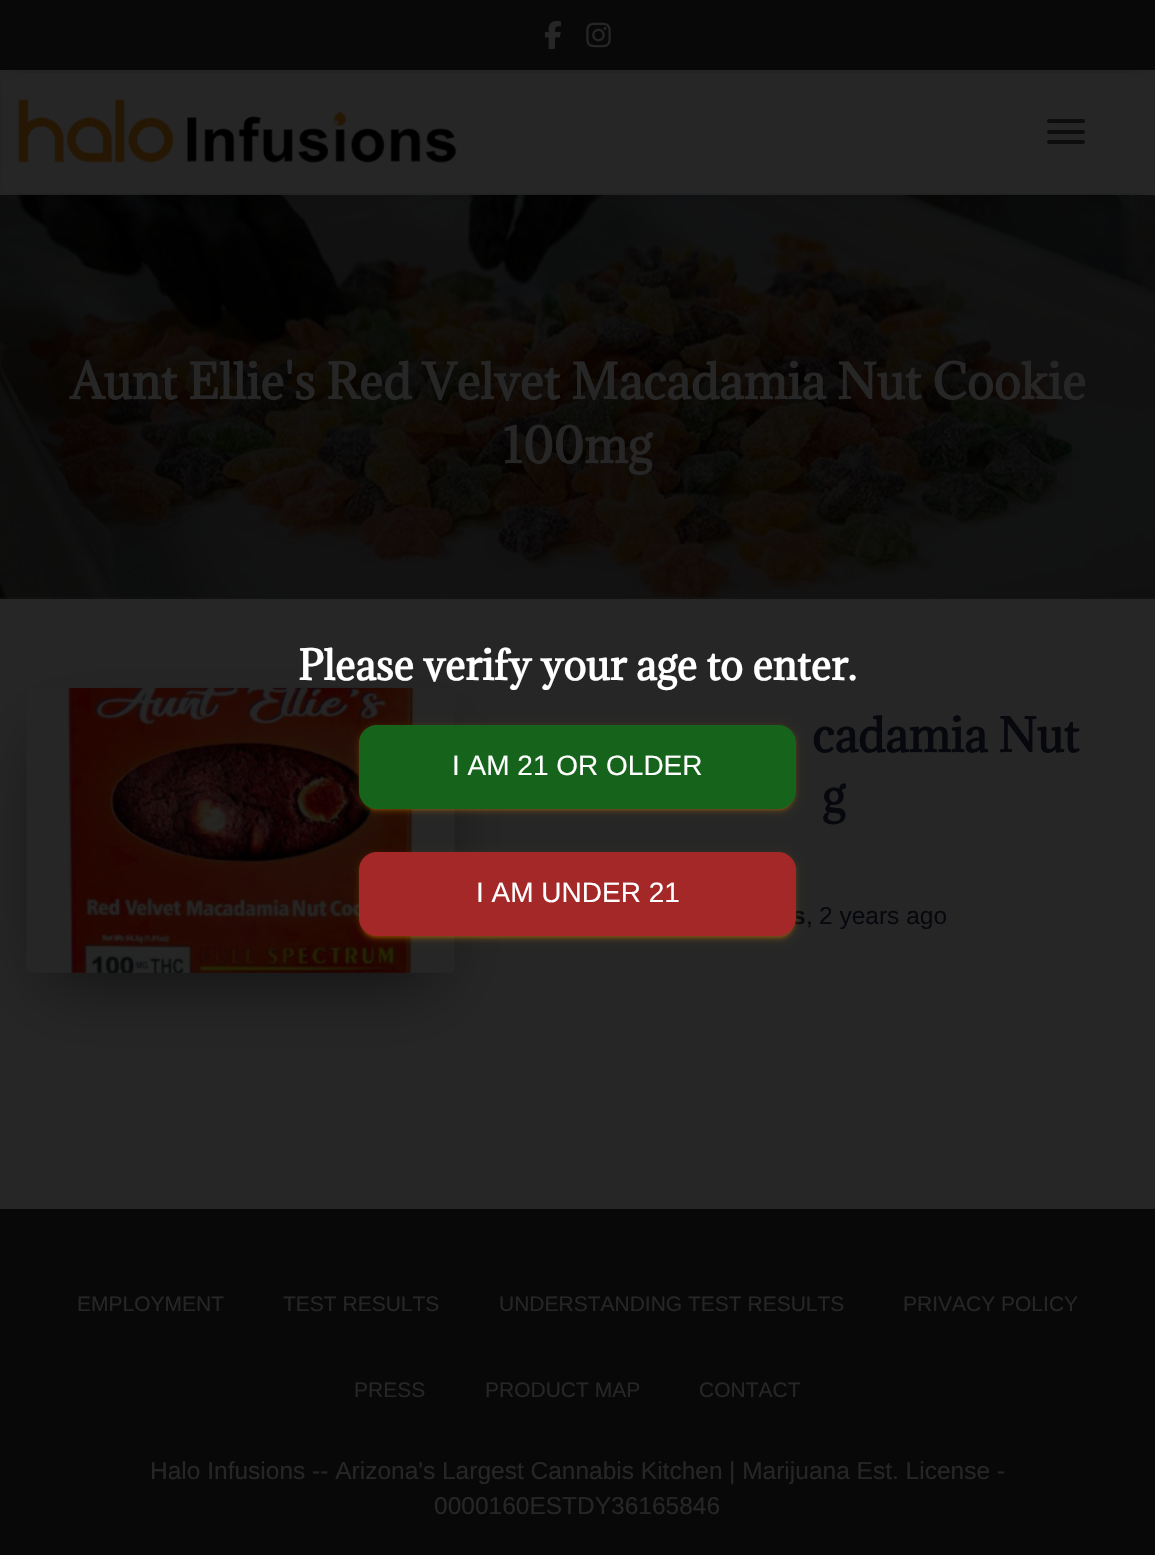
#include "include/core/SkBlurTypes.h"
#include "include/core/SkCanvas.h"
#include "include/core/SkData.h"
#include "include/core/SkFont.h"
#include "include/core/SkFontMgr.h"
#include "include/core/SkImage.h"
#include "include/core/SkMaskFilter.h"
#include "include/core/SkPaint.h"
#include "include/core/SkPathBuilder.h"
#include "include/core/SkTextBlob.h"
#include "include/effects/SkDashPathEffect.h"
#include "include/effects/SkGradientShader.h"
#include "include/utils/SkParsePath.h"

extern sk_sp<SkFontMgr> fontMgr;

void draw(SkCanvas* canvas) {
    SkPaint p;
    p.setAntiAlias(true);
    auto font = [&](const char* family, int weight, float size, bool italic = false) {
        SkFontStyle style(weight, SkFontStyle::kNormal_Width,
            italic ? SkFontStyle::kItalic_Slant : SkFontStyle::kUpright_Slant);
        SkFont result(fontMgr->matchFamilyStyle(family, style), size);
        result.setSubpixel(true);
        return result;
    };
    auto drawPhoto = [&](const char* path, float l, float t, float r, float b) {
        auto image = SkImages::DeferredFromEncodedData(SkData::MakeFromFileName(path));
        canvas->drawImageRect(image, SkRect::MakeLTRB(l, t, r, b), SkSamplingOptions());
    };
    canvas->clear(0xFF262626);
    p.setColor(0xFF131313);
    canvas->drawRect(SkRect::MakeLTRB(0, 597, 1155, 599), p);
    p.setColor(0xFF080808);
    canvas->drawRect(SkRect::MakeLTRB(0, 0, 1155, 70), p);
    drawPhoto("media/1.png", 545, 21, 561, 49);
    drawPhoto("media/2.png", 586, 22, 611, 48);
    drawPhoto("media/4.png", 0, 195, 1155, 599);
    p.setColor(0x6B000000);
    p.setMaskFilter(SkMaskFilter::MakeBlur(kNormal_SkBlurStyle, 9));
    canvas->drawRect(SkRect::MakeLTRB(11, 82, 1145, 186), p);
    p.setMaskFilter(nullptr);
    p.setColor(0xFF262626);
    canvas->drawRect(SkRect::MakeLTRB(2, 73, 1154, 193), p);
    p.setColor(0xFF232323);
    canvas->drawRect(SkRect::MakeLTRB(0, 193, 1, 195), p);
    drawPhoto("media/3.png", 18, 99, 457, 163);
    p.setColor(0xFF0D0D0D);
    canvas->drawRoundRect(SkRect::MakeLTRB(1047, 119, 1085, 123), 2, 2, p);
    canvas->drawRoundRect(SkRect::MakeLTRB(1047, 130, 1085, 134), 2, 2, p);
    canvas->drawRoundRect(SkRect::MakeLTRB(1047, 140, 1085, 144), 2, 2, p);
    auto font1 = font("Adamina", 700, 45.5f);
    p.setColor(0xFF262626);
    canvas->drawString("Aunt Ellie's Red Velvet Macadamia Nut Cookie", 70, 399, font1, p);
    canvas->drawString("100mg", 503, 463, font1, p);
    p.setColor(0x8F000000);
    p.setMaskFilter(SkMaskFilter::MakeBlur(kNormal_SkBlurStyle, 33));
    canvas->drawRect(SkRect::MakeLTRB(47, 737, 434, 980), p);
    p.setMaskFilter(nullptr);
    drawPhoto("media/5.png", 26, 687, 455, 973);
    auto font2 = font("Adamina", 700, 43.75f);
    p.setColor(0xFF07080D);
    canvas->drawString("cadamia Nut", 812, 752, font2, p);
    canvas->drawString("g", 822, 813, font2, p);
    auto font3 = font("Liberation Sans", 700, 24.5f);
    canvas->drawString("s", 792, 924, font3, p);
    auto font4 = font("Liberation Sans", 400, 24.5f);
    p.setColor(0xFF050505);
    canvas->drawString(",", 806, 924, font4, p);
    p.setColor(0xFF07080D);
    canvas->drawString("2 years ago", 819, 924, font4, p);
    p.setColor(0xFF080808);
    canvas->drawRect(SkRect::MakeLTRB(0, 1209, 1155, 1555), p);
    auto font5 = font("Liberation Sans", 400, 21);
    p.setColor(0xFF262626);
    {
        const struct { const char* s; float x, y; } items[] = {
            {"EMPLOYMENT", 77, 1311},
            {"TEST RESULTS", 283, 1311},
            {"UNDERSTANDING TEST RESULTS", 499, 1311},
            {"PRIVACY POLICY", 903, 1311},
            {"PRESS", 354, 1397},
            {"PRODUCT MAP", 485, 1397},
            {"CONTACT", 699, 1397},
        };
        for (auto [s, x, y] : items) {
            canvas->drawString(s, x, y, font5, p);
        }
    }
    {
        const struct { const char* s; float x, y; } items[] = {
            {"Halo Infusions -- Arizona's Largest Cannabis Kitchen", 150, 1479},
            {"| Marijuana Est. License -", 729, 1479},
            {"0000160ESTDY36165846", 434, 1514},
        };
        for (auto [s, x, y] : items) {
            canvas->drawString(s, x, y, font4, p);
        }
    }
    auto font6 = font("Adamina", 700, 38.5f);
    p.setColor(0xFFFFFFFF);
    canvas->drawString("Please verify your age to enter.", 298, 680, font6, p);
    p.setColor(0x1FF28900);
    p.setMaskFilter(SkMaskFilter::MakeBlur(kNormal_SkBlurStyle, 4.5f));
    canvas->drawRoundRect(SkRect::MakeLTRB(359, 726, 796, 810), 18, 18, p);
    p.setMaskFilter(nullptr);
    p.setColor(0x33F28900);
    p.setMaskFilter(SkMaskFilter::MakeBlur(kNormal_SkBlurStyle, 1));
    canvas->drawRoundRect(SkRect::MakeLTRB(362, 733, 793, 810), 14, 14, p);
    p.setMaskFilter(nullptr);
    p.setColor(0x24F28900);
    p.setMaskFilter(SkMaskFilter::MakeBlur(kNormal_SkBlurStyle, 2));
    canvas->drawRoundRect(SkRect::MakeLTRB(359, 728, 796, 812), 18, 18, p);
    p.setMaskFilter(nullptr);
    p.setColor(0xFF16641B);
    canvas->drawRoundRect(SkRect::MakeLTRB(359, 725, 796, 809), 18, 18, p);
    auto font7 = font("Liberation Sans", 400, 28);
    p.setColor(0xFFFFFFFF);
    canvas->drawString("I AM 21 OR OLDER", 452, 775, font7, p);
    p.setColor(0x1FF28900);
    p.setMaskFilter(SkMaskFilter::MakeBlur(kNormal_SkBlurStyle, 4.5f));
    canvas->drawRoundRect(SkRect::MakeLTRB(359, 854, 796, 938), 18, 18, p);
    p.setMaskFilter(nullptr);
    p.setColor(0x33F28900);
    p.setMaskFilter(SkMaskFilter::MakeBlur(kNormal_SkBlurStyle, 1));
    canvas->drawRoundRect(SkRect::MakeLTRB(362, 861, 793, 938), 14, 14, p);
    p.setMaskFilter(nullptr);
    p.setColor(0x24F28900);
    p.setMaskFilter(SkMaskFilter::MakeBlur(kNormal_SkBlurStyle, 2));
    canvas->drawRoundRect(SkRect::MakeLTRB(359, 856, 796, 940), 18, 18, p);
    p.setMaskFilter(nullptr);
    p.setColor(0xFFA42828);
    canvas->drawRoundRect(SkRect::MakeLTRB(359, 852, 796, 936), 18, 18, p);
    p.setColor(0xFFFFFFFF);
    canvas->drawString("I AM UNDER 21", 476, 902, font7, p);
}
